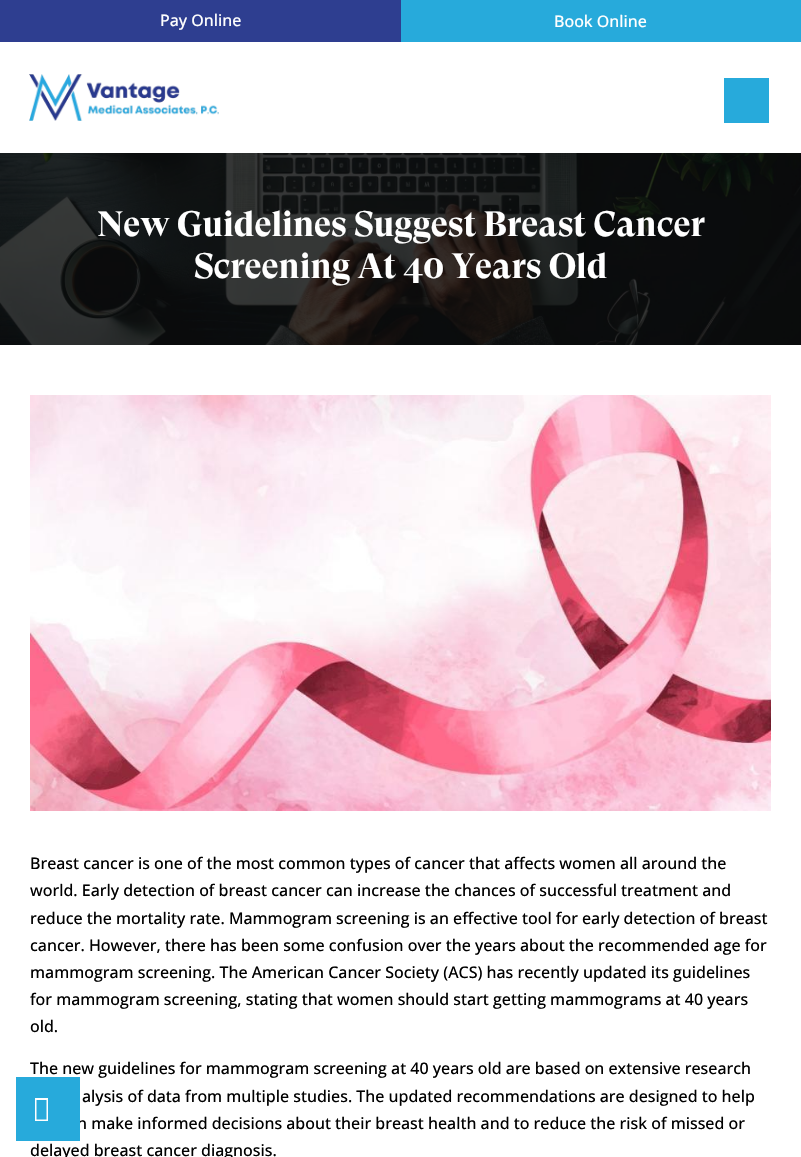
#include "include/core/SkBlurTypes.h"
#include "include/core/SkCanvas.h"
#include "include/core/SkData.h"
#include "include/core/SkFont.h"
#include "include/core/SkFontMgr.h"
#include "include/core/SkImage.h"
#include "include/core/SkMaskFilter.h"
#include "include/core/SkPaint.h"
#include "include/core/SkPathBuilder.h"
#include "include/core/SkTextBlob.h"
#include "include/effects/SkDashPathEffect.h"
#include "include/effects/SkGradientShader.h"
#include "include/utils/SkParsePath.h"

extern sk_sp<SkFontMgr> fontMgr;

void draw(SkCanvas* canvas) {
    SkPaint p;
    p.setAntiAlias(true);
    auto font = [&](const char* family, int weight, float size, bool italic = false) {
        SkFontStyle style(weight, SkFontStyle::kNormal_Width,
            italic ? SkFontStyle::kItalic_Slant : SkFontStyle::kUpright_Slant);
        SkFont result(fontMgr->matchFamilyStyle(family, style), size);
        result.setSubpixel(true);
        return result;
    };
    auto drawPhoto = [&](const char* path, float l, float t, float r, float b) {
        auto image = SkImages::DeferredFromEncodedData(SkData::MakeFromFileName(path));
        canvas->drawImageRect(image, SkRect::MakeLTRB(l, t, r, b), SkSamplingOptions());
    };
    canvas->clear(0xFFFFFFFF);
    p.setColor(0xFF2E3E90);
    canvas->drawRect(SkRect::MakeLTRB(0, 0, 401, 42), p);
    auto font1 = font("Open Sans", 500, 16);
    p.setColor(0xFFFFFFFF);
    canvas->drawString("Pay Online", 160, 26, font1, p);
    p.setColor(0xFF27AADB);
    canvas->drawRect(SkRect::MakeLTRB(401, 0, 801, 42), p);
    p.setColor(0xFFFFFFFF);
    canvas->drawString("Book Online", 554, 27, font1, p);
    drawPhoto("media/1.png", 29, 74, 219, 121);
    p.setColor(0xFF27AADB);
    canvas->drawRect(SkRect::MakeLTRB(724, 78, 769, 123), p);
    drawPhoto("media/2.png", 0, 153, 801, 345);
    auto font2 = font("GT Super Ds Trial", 700, 35);
    p.setColor(0xFFFFFFFF);
    canvas->drawString("New Guidelines Suggest Breast Cancer", 97, 236, font2, p);
    canvas->drawString("Screening At 40 Years Old", 194, 278, font2, p);
    drawPhoto("media/3.png", 30, 395, 771, 811);
    p.setColor(0xFF000000);
    {
        const struct { const char* s; float x, y; } items[] = {
            {"Breast cancer is one of the most common types of cancer that affects women all around the", 30, 869},
            {"world. Early detection of breast cancer can increase the chances of successful treatment and", 30, 896},
            {"reduce the mortality rate. Mammogram screening is an effective tool for early detection of breast", 30, 924},
            {"cancer. However, there has been some confusion over the years about the recommended age for", 30, 951},
            {"mammogram screening. The American Cancer Society (ACS) has recently updated its guidelines", 30, 978},
            {"for mammogram screening, stating that women should start getting mammograms at 40 years", 30, 1005},
            {"old.", 30, 1032},
            {"The new guidelines for mammogram screening at 40 years old are based on extensive research", 30, 1074},
            {"alysis of data from multiple studies. The updated recommendations are designed to help", 82, 1102},
            {"n make informed decisions about their breast health and to reduce the risk of missed or", 77, 1129},
            {"delayed breast cancer diagnosis.", 30, 1156},
        };
        for (auto [s, x, y] : items) {
            canvas->drawString(s, x, y, font1, p);
        }
    }
    p.setColor(0xFF27AADB);
    canvas->drawRect(SkRect::MakeLTRB(16, 1077, 80, 1141), p);
    p.setColor(0xFFFFFFFF);
    canvas->drawPath(SkPathBuilder().moveTo(35, 1121).lineTo(35, 1098).lineTo(48, 1098).lineTo(48, 1121).close().moveTo(36.5f, 1119.5f).lineTo(46.5f, 1119.5f).lineTo(46.5f, 1100).lineTo(36.5f, 1100).close().detach(), p);
}
